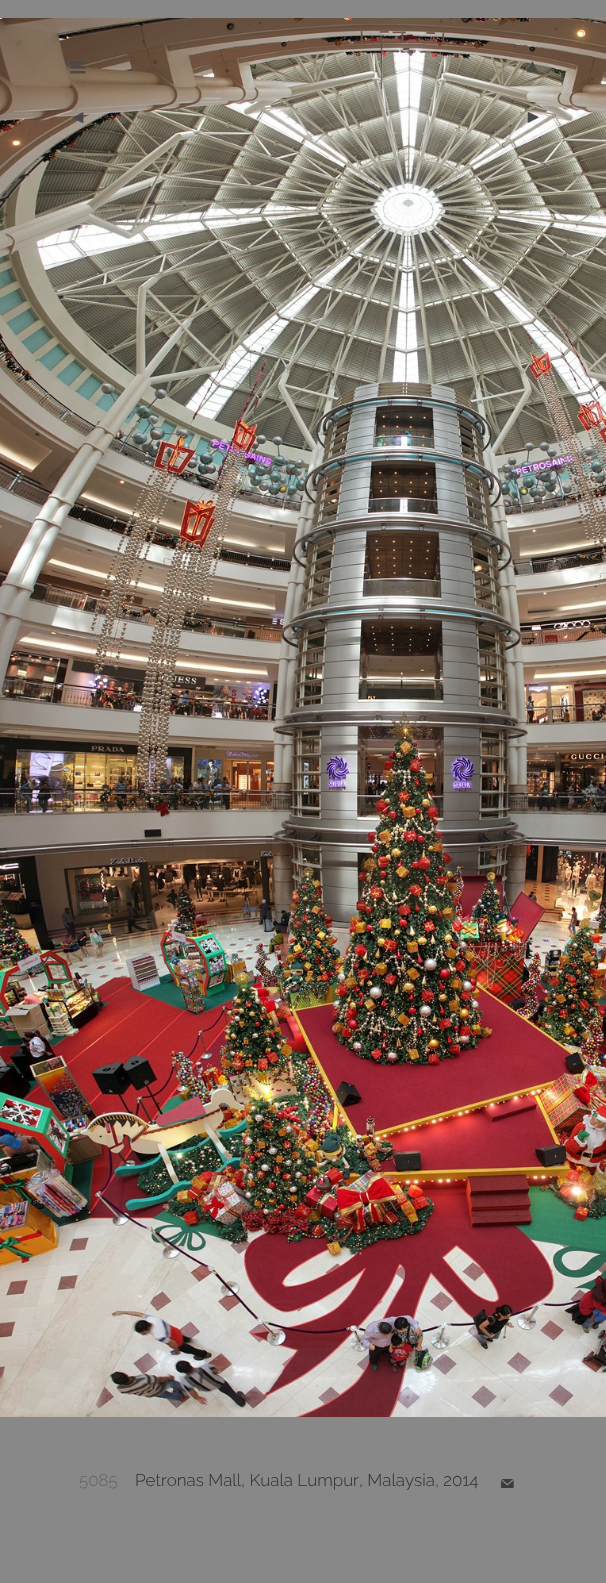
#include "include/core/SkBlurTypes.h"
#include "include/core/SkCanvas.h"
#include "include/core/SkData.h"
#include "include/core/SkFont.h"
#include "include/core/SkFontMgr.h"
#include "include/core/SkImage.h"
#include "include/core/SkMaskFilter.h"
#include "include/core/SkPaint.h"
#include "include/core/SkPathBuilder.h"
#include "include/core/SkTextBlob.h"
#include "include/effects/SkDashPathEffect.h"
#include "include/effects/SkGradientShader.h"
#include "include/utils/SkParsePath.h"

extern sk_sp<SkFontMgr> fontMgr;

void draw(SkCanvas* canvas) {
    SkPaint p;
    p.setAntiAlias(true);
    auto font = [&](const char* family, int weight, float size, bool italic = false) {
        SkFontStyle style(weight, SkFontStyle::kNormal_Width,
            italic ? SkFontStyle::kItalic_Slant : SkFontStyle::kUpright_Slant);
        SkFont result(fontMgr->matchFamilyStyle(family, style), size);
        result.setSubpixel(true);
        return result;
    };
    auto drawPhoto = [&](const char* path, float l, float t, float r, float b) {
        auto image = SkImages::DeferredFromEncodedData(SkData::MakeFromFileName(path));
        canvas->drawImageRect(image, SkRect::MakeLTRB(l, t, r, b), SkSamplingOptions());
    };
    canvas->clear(0xFF888888);
    drawPhoto("media/1.png", 0, 18, 606, 1417);
    drawPhoto("media/2.png", 70, 61, 86, 74);
    drawPhoto("media/3.png", 526, 61, 538, 73);
    drawPhoto("media/4.png", 72, 112, 84, 124);
    drawPhoto("media/5.png", 527, 111, 539, 123);
    auto font1 = font("Raleway", 100, 17);
    p.setColor(0xFF666666);
    canvas->drawString("5085", 79, 1486, font1, p);
    p.setColor(0xFF353535);
    canvas->drawString("Petronas Mall, Kuala Lumpur, Malaysia, 2014", 135, 1486, font1, p);
    drawPhoto("media/6.png", 501, 1479, 514, 1488);
}
